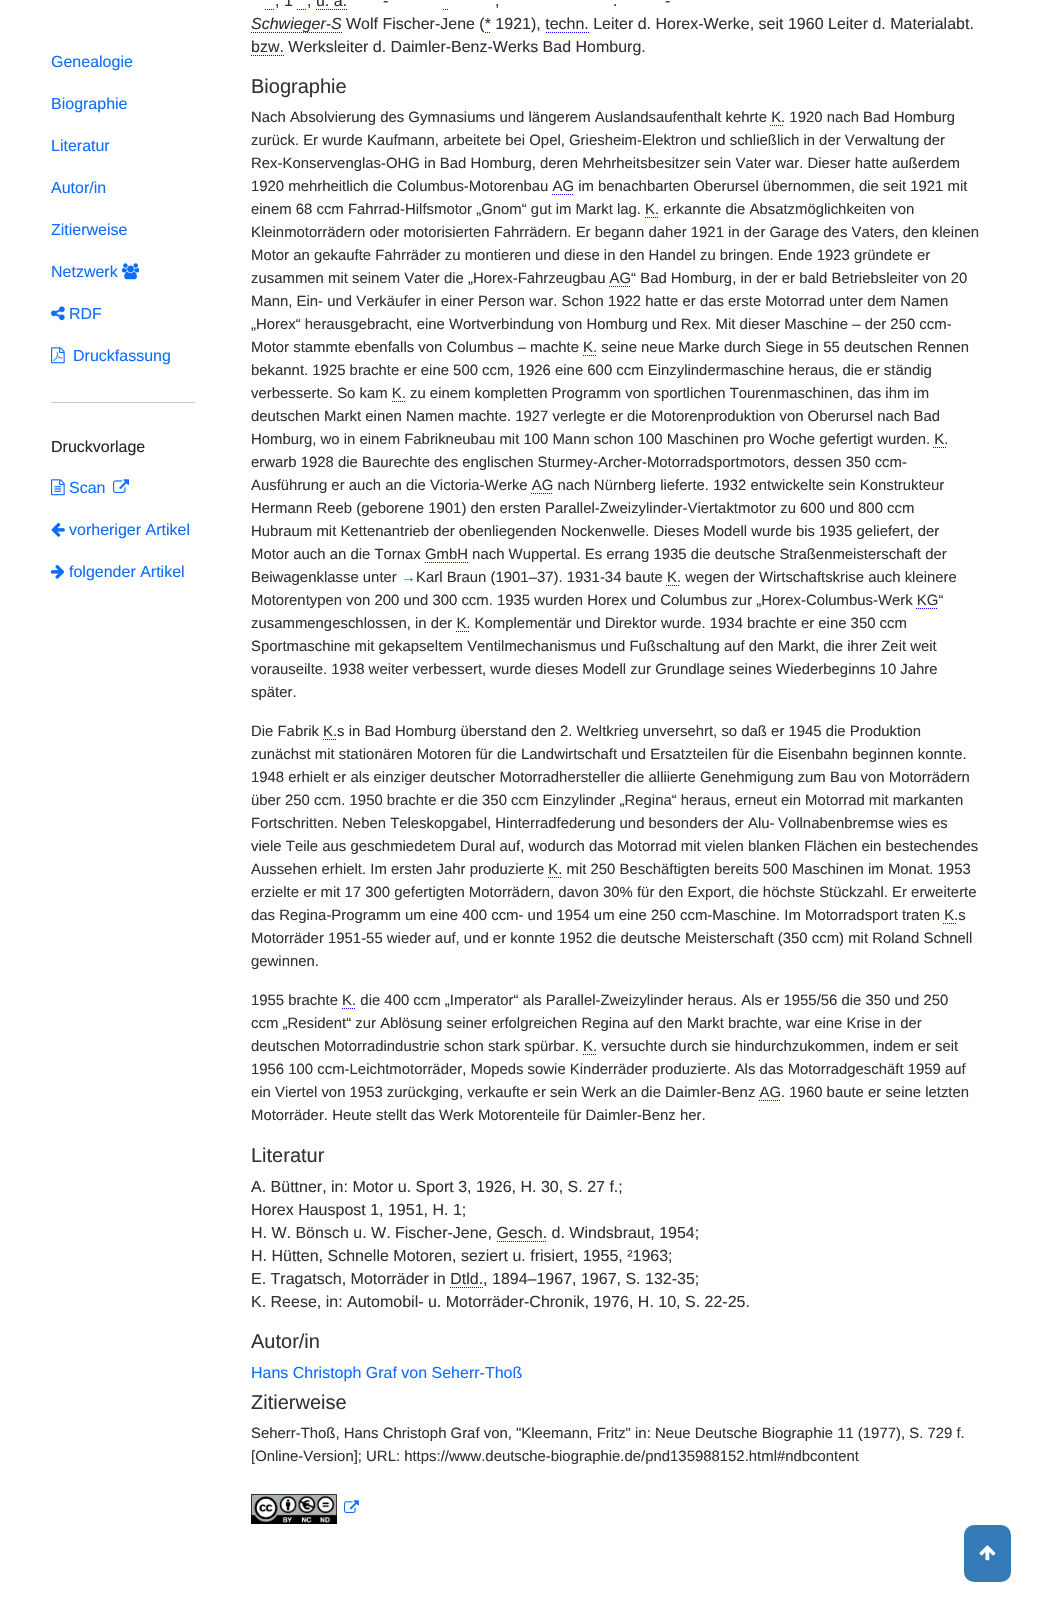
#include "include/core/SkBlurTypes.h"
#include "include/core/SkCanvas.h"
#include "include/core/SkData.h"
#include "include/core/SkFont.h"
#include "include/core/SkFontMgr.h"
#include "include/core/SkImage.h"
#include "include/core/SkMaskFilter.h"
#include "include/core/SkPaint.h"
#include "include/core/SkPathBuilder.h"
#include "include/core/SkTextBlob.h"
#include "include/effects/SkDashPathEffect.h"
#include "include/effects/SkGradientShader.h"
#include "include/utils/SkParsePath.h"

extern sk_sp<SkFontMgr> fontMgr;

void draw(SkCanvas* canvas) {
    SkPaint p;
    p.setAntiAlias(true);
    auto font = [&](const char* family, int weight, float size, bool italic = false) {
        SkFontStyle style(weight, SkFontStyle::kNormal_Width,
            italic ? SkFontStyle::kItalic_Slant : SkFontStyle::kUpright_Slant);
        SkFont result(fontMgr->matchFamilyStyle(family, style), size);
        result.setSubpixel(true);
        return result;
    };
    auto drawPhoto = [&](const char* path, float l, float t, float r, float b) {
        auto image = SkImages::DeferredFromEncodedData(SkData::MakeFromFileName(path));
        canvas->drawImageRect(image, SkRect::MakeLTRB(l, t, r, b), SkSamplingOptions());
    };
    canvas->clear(0xFFFFFFFF);
    auto font1 = font("Liberation Sans", 400, 16);
    p.setColor(0xFF0D6EFD);
    {
        const struct { const char* s; float x, y; } items[] = {
            {"Genealogie", 51, 67},
            {"Biographie", 51, 109},
            {"Literatur", 51, 151},
            {"Autor/in", 51, 193},
            {"Zitierweise", 51, 235},
            {"Netzwerk", 51, 277},
        };
        for (auto [s, x, y] : items) {
            canvas->drawString(s, x, y, font1, p);
        }
    }
    drawPhoto("media/1.png", 122, 263, 140, 280);
    drawPhoto("media/2.png", 51, 306, 65, 321);
    canvas->drawString("RDF", 69, 319, font1, p);
    drawPhoto("media/3.png", 51, 347, 65, 364);
    canvas->drawString("Druckfassung", 73, 361, font1, p);
    p.setColor(0xFFC8C9CA);
    canvas->drawRect(SkRect::MakeLTRB(51, 402, 195, 403), p);
    p.setColor(0xFF212529);
    canvas->drawString("Druckvorlage", 51, 452, font1, p);
    drawPhoto("media/4.png", 51, 479, 65, 496);
    p.setColor(0xFF0D6EFD);
    canvas->drawString("Scan", 69, 493, font1, p);
    drawPhoto("media/5.png", 113, 479, 129, 493);
    drawPhoto("media/6.png", 51, 522, 65, 537);
    canvas->drawString("vorheriger Artikel", 69, 535, font1, p);
    drawPhoto("media/7.png", 51, 564, 65, 579);
    canvas->drawString("folgender Artikel", 69, 577, font1, p);
    p.setColor(0xFF333333);
    {
        const struct { const char* s; float x, y; } items[] = {
            {", 1", 275, 6},
            {", u. a.", 307, 6},
            {"-", 383, 6},
            {"-", 665, 6},
            {",", 495, 6},
            {".", 613, 6},
        };
        for (auto [s, x, y] : items) {
            canvas->drawString(s, x, y, font1, p);
        }
    }
    p.setStyle(SkPaint::kStroke_Style);
    p.setStrokeWidth(1);
    p.setColor(0xFF0000FF);
    p.setPathEffect(SkDashPathEffect::Make({{1, 1}}, 0));
    canvas->drawPath(SkPathBuilder().moveTo(265, 9.5f).lineTo(275, 9.5f).detach(), p);
    p.setPathEffect(nullptr);
    p.setPathEffect(SkDashPathEffect::Make({{1, 1}}, 0));
    canvas->drawPath(SkPathBuilder().moveTo(297, 9.5f).lineTo(307, 9.5f).detach(), p);
    p.setPathEffect(nullptr);
    p.setPathEffect(SkDashPathEffect::Make({{1, 1}}, 0));
    canvas->drawPath(SkPathBuilder().moveTo(316, 9.5f).lineTo(347, 9.5f).detach(), p);
    p.setPathEffect(nullptr);
    canvas->drawPath(SkPathBuilder().moveTo(443, 9.5f).lineTo(444, 9.5f).moveTo(445, 9.5f).lineTo(446, 9.5f).moveTo(447, 9.5f).lineTo(448, 9.5f).detach(), p);
    p.setPathEffect(SkDashPathEffect::Make({{1, 1}}, 0));
    canvas->drawPath(SkPathBuilder().moveTo(251, 32.5f).lineTo(342, 32.5f).detach(), p);
    p.setPathEffect(nullptr);
    auto font2 = font("Liberation Sans", 400, 16, true);
    p.setStyle(SkPaint::kFill_Style);
    p.setColor(0xFF333333);
    canvas->drawString("Schwieger-S", 251, 29, font2, p);
    canvas->drawString("Wolf Fischer-Jene (* 1921), techn. Leiter d. Horex-Werke, seit 1960 Leiter d. Materialabt.", 346, 29, font1, p);
    p.setStyle(SkPaint::kStroke_Style);
    p.setColor(0xFF0000FF);
    canvas->drawPath(SkPathBuilder().moveTo(485, 32.5f).lineTo(486, 32.5f).moveTo(487, 32.5f).lineTo(488, 32.5f).moveTo(489, 32.5f).lineTo(490, 32.5f).detach(), p);
    p.setPathEffect(SkDashPathEffect::Make({{1, 1}}, 0));
    canvas->drawPath(SkPathBuilder().moveTo(546, 32.5f).lineTo(589, 32.5f).detach(), p);
    p.setPathEffect(nullptr);
    p.setPathEffect(SkDashPathEffect::Make({{1, 1}}, 0));
    canvas->drawPath(SkPathBuilder().moveTo(251, 55.5f).lineTo(284, 55.5f).detach(), p);
    p.setPathEffect(nullptr);
    p.setStyle(SkPaint::kFill_Style);
    p.setColor(0xFF333333);
    canvas->drawString("bzw. Werksleiter d. Daimler-Benz-Werks Bad Homburg.", 251, 52, font1, p);
    auto font3 = font("Liberation Sans", 400, 20);
    canvas->drawString("Biographie", 251, 93, font3, p);
    auto font4 = font("Liberation Sans", 400, 14.9f);
    canvas->drawString("Nach Absolvierung des Gymnasiums und längerem Auslandsaufenthalt kehrte K. 1920 nach Bad Homburg", 251, 122, font4, p);
    p.setStyle(SkPaint::kStroke_Style);
    p.setColor(0xFF0000FF);
    p.setPathEffect(SkDashPathEffect::Make({{1, 1}}, 0));
    canvas->drawPath(SkPathBuilder().moveTo(770, 125.5f).lineTo(784, 125.5f).detach(), p);
    p.setPathEffect(nullptr);
    p.setStyle(SkPaint::kFill_Style);
    p.setColor(0xFF333333);
    {
        const struct { const char* s; float x, y; } items[] = {
            {"zurück. Er wurde Kaufmann, arbeitete bei Opel, Griesheim-Elektron und schließlich in der Verwaltung der", 251, 145},
            {"Rex-Konservenglas-OHG in Bad Homburg, deren Mehrheitsbesitzer sein Vater war. Dieser hatte außerdem", 251, 168},
            {"1920 mehrheitlich die Columbus-Motorenbau AG im benachbarten Oberursel übernommen, die seit 1921 mit", 251, 191},
        };
        for (auto [s, x, y] : items) {
            canvas->drawString(s, x, y, font4, p);
        }
    }
    p.setStyle(SkPaint::kStroke_Style);
    p.setColor(0xFF0000FF);
    p.setPathEffect(SkDashPathEffect::Make({{1, 1}}, 0));
    canvas->drawPath(SkPathBuilder().moveTo(552, 194.5f).lineTo(574, 194.5f).detach(), p);
    p.setPathEffect(nullptr);
    p.setStyle(SkPaint::kFill_Style);
    p.setColor(0xFF333333);
    canvas->drawString("einem 68 ccm Fahrrad-Hilfsmotor „Gnom“ gut im Markt lag. K. erkannte die Absatzmöglichkeiten von", 251, 214, font4, p);
    p.setStyle(SkPaint::kStroke_Style);
    p.setColor(0xFF0000FF);
    p.setPathEffect(SkDashPathEffect::Make({{1, 1}}, 0));
    canvas->drawPath(SkPathBuilder().moveTo(645, 217.5f).lineTo(659, 217.5f).detach(), p);
    p.setPathEffect(nullptr);
    p.setStyle(SkPaint::kFill_Style);
    p.setColor(0xFF333333);
    {
        const struct { const char* s; float x, y; } items[] = {
            {"Kleinmotorrädern oder motorisierten Fahrrädern. Er begann daher 1921 in der Garage des Vaters, den kleinen", 251, 237},
            {"Motor an gekaufte Fahrräder zu montieren und diese in den Handel zu bringen. Ende 1923 gründete er", 251, 260},
            {"zusammen mit seinem Vater die „Horex-Fahrzeugbau AG“ Bad Homburg, in der er bald Betriebsleiter von 20", 251, 283},
        };
        for (auto [s, x, y] : items) {
            canvas->drawString(s, x, y, font4, p);
        }
    }
    p.setStyle(SkPaint::kStroke_Style);
    p.setColor(0xFF0000FF);
    p.setPathEffect(SkDashPathEffect::Make({{1, 1}}, 0));
    canvas->drawPath(SkPathBuilder().moveTo(609, 286.5f).lineTo(631, 286.5f).detach(), p);
    p.setPathEffect(nullptr);
    p.setStyle(SkPaint::kFill_Style);
    p.setColor(0xFF333333);
    {
        const struct { const char* s; float x, y; } items[] = {
            {"Mann, Ein- und Verkäufer in einer Person war. Schon 1922 hatte er das erste Motorrad unter dem Namen", 251, 306},
            {"„Horex“ herausgebracht, eine Wortverbindung von Homburg und Rex. Mit dieser Maschine – der 250 ccm-", 251, 329},
            {"Motor stammte ebenfalls von Columbus – machte K. seine neue Marke durch Siege in 55 deutschen Rennen", 251, 352},
        };
        for (auto [s, x, y] : items) {
            canvas->drawString(s, x, y, font4, p);
        }
    }
    p.setStyle(SkPaint::kStroke_Style);
    p.setColor(0xFF0000FF);
    p.setPathEffect(SkDashPathEffect::Make({{1, 1}}, 0));
    canvas->drawPath(SkPathBuilder().moveTo(583, 355.5f).lineTo(597, 355.5f).detach(), p);
    p.setPathEffect(nullptr);
    p.setStyle(SkPaint::kFill_Style);
    p.setColor(0xFF333333);
    canvas->drawString("bekannt. 1925 brachte er eine 500 ccm, 1926 eine 600 ccm Einzylindermaschine heraus, die er ständig", 251, 375, font4, p);
    canvas->drawString("verbesserte. So kam K. zu einem kompletten Programm von sportlichen Tourenmaschinen, das ihm im", 251, 398, font4, p);
    p.setStyle(SkPaint::kStroke_Style);
    p.setColor(0xFF0000FF);
    p.setPathEffect(SkDashPathEffect::Make({{1, 1}}, 0));
    canvas->drawPath(SkPathBuilder().moveTo(392, 401.5f).lineTo(406, 401.5f).detach(), p);
    p.setPathEffect(nullptr);
    p.setStyle(SkPaint::kFill_Style);
    p.setColor(0xFF333333);
    canvas->drawString("deutschen Markt einen Namen machte. 1927 verlegte er die Motorenproduktion von Oberursel nach Bad", 251, 421, font4, p);
    canvas->drawString("Homburg, wo in einem Fabrikneubau mit 100 Mann schon 100 Maschinen pro Woche gefertigt wurden. K.", 251, 444, font4, p);
    p.setStyle(SkPaint::kStroke_Style);
    p.setColor(0xFF0000FF);
    p.setPathEffect(SkDashPathEffect::Make({{1, 1}}, 0));
    canvas->drawPath(SkPathBuilder().moveTo(933, 447.5f).lineTo(947, 447.5f).detach(), p);
    p.setPathEffect(nullptr);
    p.setStyle(SkPaint::kFill_Style);
    p.setColor(0xFF333333);
    canvas->drawString("erwarb 1928 die Baurechte des englischen Sturmey-Archer-Motorradsportmotors, dessen 350 ccm-", 251, 467, font4, p);
    canvas->drawString("Ausführung er auch an die Victoria-Werke AG nach Nürnberg lieferte. 1932 entwickelte sein Konstrukteur", 251, 490, font4, p);
    p.setStyle(SkPaint::kStroke_Style);
    p.setColor(0xFF0000FF);
    p.setPathEffect(SkDashPathEffect::Make({{1, 1}}, 0));
    canvas->drawPath(SkPathBuilder().moveTo(531, 493.5f).lineTo(553, 493.5f).detach(), p);
    p.setPathEffect(nullptr);
    p.setStyle(SkPaint::kFill_Style);
    p.setColor(0xFF333333);
    {
        const struct { const char* s; float x, y; } items[] = {
            {"Hermann Reeb (geborene 1901) den ersten Parallel-Zweizylinder-Viertaktmotor zu 600 und 800 ccm", 251, 513},
            {"Hubraum mit Kettenantrieb der obenliegenden Nockenwelle. Dieses Modell wurde bis 1935 geliefert, der", 251, 536},
            {"Motor auch an die Tornax GmbH nach Wuppertal. Es errang 1935 die deutsche Straßenmeisterschaft der", 251, 559},
        };
        for (auto [s, x, y] : items) {
            canvas->drawString(s, x, y, font4, p);
        }
    }
    p.setStyle(SkPaint::kStroke_Style);
    p.setColor(0xFF0000FF);
    p.setPathEffect(SkDashPathEffect::Make({{1, 1}}, 0));
    canvas->drawPath(SkPathBuilder().moveTo(425, 562.5f).lineTo(468, 562.5f).detach(), p);
    p.setPathEffect(nullptr);
    p.setStyle(SkPaint::kFill_Style);
    p.setColor(0xFF333333);
    canvas->drawString("Beiwagenklasse unter", 251, 582, font4, p);
    p.setColor(0xFF0D6EFD);
    canvas->drawString("→", 401, 582, font4, p);
    p.setColor(0xFF333333);
    canvas->drawString("Karl Braun (1901–37). 1931-34 baute K. wegen der Wirtschaftskrise auch kleinere", 416, 582, font4, p);
    p.setStyle(SkPaint::kStroke_Style);
    p.setColor(0xFF0000FF);
    p.setPathEffect(SkDashPathEffect::Make({{1, 1}}, 0));
    canvas->drawPath(SkPathBuilder().moveTo(666, 585.5f).lineTo(680, 585.5f).detach(), p);
    p.setPathEffect(nullptr);
    p.setStyle(SkPaint::kFill_Style);
    p.setColor(0xFF333333);
    canvas->drawString("Motorentypen von 200 und 300 ccm. 1935 wurden Horex und Columbus zur „Horex-Columbus-Werk KG“", 251, 605, font4, p);
    p.setStyle(SkPaint::kStroke_Style);
    p.setColor(0xFF0000FF);
    p.setPathEffect(SkDashPathEffect::Make({{1, 1}}, 0));
    canvas->drawPath(SkPathBuilder().moveTo(916, 608.5f).lineTo(937, 608.5f).detach(), p);
    p.setPathEffect(nullptr);
    p.setStyle(SkPaint::kFill_Style);
    p.setColor(0xFF333333);
    canvas->drawString("zusammengeschlossen, in der K. Komplementär und Direktor wurde. 1934 brachte er eine 350 ccm", 251, 628, font4, p);
    p.setStyle(SkPaint::kStroke_Style);
    p.setColor(0xFF0000FF);
    p.setPathEffect(SkDashPathEffect::Make({{1, 1}}, 0));
    canvas->drawPath(SkPathBuilder().moveTo(456, 631.5f).lineTo(470, 631.5f).detach(), p);
    p.setPathEffect(nullptr);
    p.setStyle(SkPaint::kFill_Style);
    p.setColor(0xFF333333);
    {
        const struct { const char* s; float x, y; } items[] = {
            {"Sportmaschine mit gekapseltem Ventilmechanismus und Fußschaltung auf den Markt, die ihrer Zeit weit", 251, 651},
            {"vorauseilte. 1938 weiter verbessert, wurde dieses Modell zur Grundlage seines Wiederbeginns 10 Jahre", 251, 674},
            {"später.", 251, 697},
            {"Die Fabrik K.s in Bad Homburg überstand den 2. Weltkrieg unversehrt, so daß er 1945 die Produktion", 251, 736},
        };
        for (auto [s, x, y] : items) {
            canvas->drawString(s, x, y, font4, p);
        }
    }
    p.setStyle(SkPaint::kStroke_Style);
    p.setColor(0xFF0000FF);
    p.setPathEffect(SkDashPathEffect::Make({{1, 1}}, 0));
    canvas->drawPath(SkPathBuilder().moveTo(323, 739.5f).lineTo(337, 739.5f).detach(), p);
    p.setPathEffect(nullptr);
    p.setStyle(SkPaint::kFill_Style);
    p.setColor(0xFF333333);
    {
        const struct { const char* s; float x, y; } items[] = {
            {"zunächst mit stationären Motoren für die Landwirtschaft und Ersatzteilen für die Eisenbahn beginnen konnte.", 251, 759},
            {"1948 erhielt er als einziger deutscher Motorradhersteller die alliierte Genehmigung zum Bau von Motorrädern", 251, 782},
            {"über 250 ccm. 1950 brachte er die 350 ccm Einzylinder „Regina“ heraus, erneut ein Motorrad mit markanten", 251, 805},
            {"Fortschritten. Neben Teleskopgabel, Hinterradfederung und besonders der Alu-", 251, 828},
            {"Vollnabenbremse wies es", 778, 828},
            {"viele Teile aus geschmiedetem Dural auf, wodurch das Motorrad mit vielen blanken Flächen ein bestechendes", 251, 851},
            {"Aussehen erhielt. Im ersten Jahr produzierte K. mit 250 Beschäftigten bereits 500 Maschinen im Monat. 1953", 251, 874},
        };
        for (auto [s, x, y] : items) {
            canvas->drawString(s, x, y, font4, p);
        }
    }
    p.setStyle(SkPaint::kStroke_Style);
    p.setColor(0xFF0000FF);
    p.setPathEffect(SkDashPathEffect::Make({{1, 1}}, 0));
    canvas->drawPath(SkPathBuilder().moveTo(548, 877.5f).lineTo(562, 877.5f).detach(), p);
    p.setPathEffect(nullptr);
    p.setStyle(SkPaint::kFill_Style);
    p.setColor(0xFF333333);
    canvas->drawString("erzielte er mit 17 300 gefertigten Motorrädern, davon 30% für den Export, die höchste Stückzahl. Er erweiterte", 251, 897, font4, p);
    canvas->drawString("das Regina-Programm um eine 400 ccm- und 1954 um eine 250 ccm-Maschine. Im Motorradsport traten K.s", 251, 920, font4, p);
    p.setStyle(SkPaint::kStroke_Style);
    p.setColor(0xFF0000FF);
    p.setPathEffect(SkDashPathEffect::Make({{1, 1}}, 0));
    canvas->drawPath(SkPathBuilder().moveTo(943, 923.5f).lineTo(957, 923.5f).detach(), p);
    p.setPathEffect(nullptr);
    p.setStyle(SkPaint::kFill_Style);
    p.setColor(0xFF333333);
    {
        const struct { const char* s; float x, y; } items[] = {
            {"Motorräder 1951-55 wieder auf, und er konnte 1952 die deutsche Meisterschaft (350 ccm) mit Roland Schnell", 251, 943},
            {"gewinnen.", 251, 966},
            {"1955 brachte K. die 400 ccm „Imperator“ als Parallel-Zweizylinder heraus. Als er 1955/56 die 350 und 250", 251, 1005},
        };
        for (auto [s, x, y] : items) {
            canvas->drawString(s, x, y, font4, p);
        }
    }
    p.setStyle(SkPaint::kStroke_Style);
    p.setColor(0xFF0000FF);
    p.setPathEffect(SkDashPathEffect::Make({{1, 1}}, 0));
    canvas->drawPath(SkPathBuilder().moveTo(342, 1008.5f).lineTo(356, 1008.5f).detach(), p);
    p.setPathEffect(nullptr);
    p.setStyle(SkPaint::kFill_Style);
    p.setColor(0xFF333333);
    canvas->drawString("ccm „Resident“ zur Ablösung seiner erfolgreichen Regina auf den Markt brachte, war eine Krise in der", 251, 1028, font4, p);
    canvas->drawString("deutschen Motorradindustrie schon stark spürbar. K. versuchte durch sie hindurchzukommen, indem er seit", 251, 1051, font4, p);
    p.setStyle(SkPaint::kStroke_Style);
    p.setColor(0xFF0000FF);
    p.setPathEffect(SkDashPathEffect::Make({{1, 1}}, 0));
    canvas->drawPath(SkPathBuilder().moveTo(583, 1054.5f).lineTo(597, 1054.5f).detach(), p);
    p.setPathEffect(nullptr);
    p.setStyle(SkPaint::kFill_Style);
    p.setColor(0xFF333333);
    canvas->drawString("1956 100 ccm-Leichtmotorräder, Mopeds sowie Kinderräder produzierte. Als das Motorradgeschäft 1959 auf", 251, 1074, font4, p);
    canvas->drawString("ein Viertel von 1953 zurückging, verkaufte er sein Werk an die Daimler-Benz AG. 1960 baute er seine letzten", 251, 1097, font4, p);
    p.setStyle(SkPaint::kStroke_Style);
    p.setColor(0xFF0000FF);
    p.setPathEffect(SkDashPathEffect::Make({{1, 1}}, 0));
    canvas->drawPath(SkPathBuilder().moveTo(759, 1100.5f).lineTo(780, 1100.5f).detach(), p);
    p.setPathEffect(nullptr);
    p.setStyle(SkPaint::kFill_Style);
    p.setColor(0xFF333333);
    canvas->drawString("Motorräder. Heute stellt das Werk Motorenteile für Daimler-Benz her.", 251, 1120, font4, p);
    canvas->drawString("Literatur", 251, 1162, font3, p);
    {
        const struct { const char* s; float x, y; } items[] = {
            {"A. Büttner, in: Motor u. Sport 3, 1926, H. 30, S. 27 f.;", 251, 1192},
            {"Horex Hauspost 1, 1951, H. 1;", 251, 1215},
            {"H. W. Bönsch u. W. Fischer-Jene, Gesch. d. Windsbraut, 1954;", 251, 1238},
        };
        for (auto [s, x, y] : items) {
            canvas->drawString(s, x, y, font1, p);
        }
    }
    p.setStyle(SkPaint::kStroke_Style);
    p.setColor(0xFF0000FF);
    p.setPathEffect(SkDashPathEffect::Make({{1, 1}}, 0));
    canvas->drawPath(SkPathBuilder().moveTo(497, 1241.5f).lineTo(547, 1241.5f).detach(), p);
    p.setPathEffect(nullptr);
    p.setStyle(SkPaint::kFill_Style);
    p.setColor(0xFF333333);
    canvas->drawString("H. Hütten, Schnelle Motoren, seziert u. frisiert, 1955, ²1963;", 251, 1261, font1, p);
    canvas->drawString("E. Tragatsch, Motorräder in Dtld., 1894–1967, 1967, S. 132-35;", 251, 1284, font1, p);
    p.setStyle(SkPaint::kStroke_Style);
    p.setColor(0xFF0000FF);
    p.setPathEffect(SkDashPathEffect::Make({{1, 1}}, 0));
    canvas->drawPath(SkPathBuilder().moveTo(450, 1287.5f).lineTo(483, 1287.5f).detach(), p);
    p.setPathEffect(nullptr);
    p.setStyle(SkPaint::kFill_Style);
    p.setColor(0xFF333333);
    canvas->drawString("K. Reese, in: Automobil- u. Motorräder-Chronik, 1976, H. 10, S. 22-25.", 251, 1307, font1, p);
    canvas->drawString("Autor/in", 251, 1348, font3, p);
    p.setColor(0xFF0D6EFD);
    canvas->drawString("Hans Christoph Graf von Seherr-Thoß", 251, 1378, font1, p);
    p.setColor(0xFF333333);
    canvas->drawString("Zitierweise", 251, 1409, font3, p);
    canvas->drawString("Seherr-Thoß, Hans Christoph Graf von, \"Kleemann, Fritz\" in: Neue Deutsche Biographie 11 (1977), S. 729 f.", 251, 1438, font4, p);
    canvas->drawString("[Online-Version]; URL: https://www.deutsche-biographie.de/pnd135988152.html#ndbcontent", 251, 1461, font4, p);
    drawPhoto("media/8.png", 251, 1494, 337, 1524);
    drawPhoto("media/9.png", 344, 1500, 359, 1513);
    p.setColor(0xFF337AB7);
    canvas->drawRoundRect(SkRect::MakeLTRB(964, 1525, 1011, 1582), 10, 10, p);
    drawPhoto("media/10.png", 979, 1545, 996, 1561);
}
